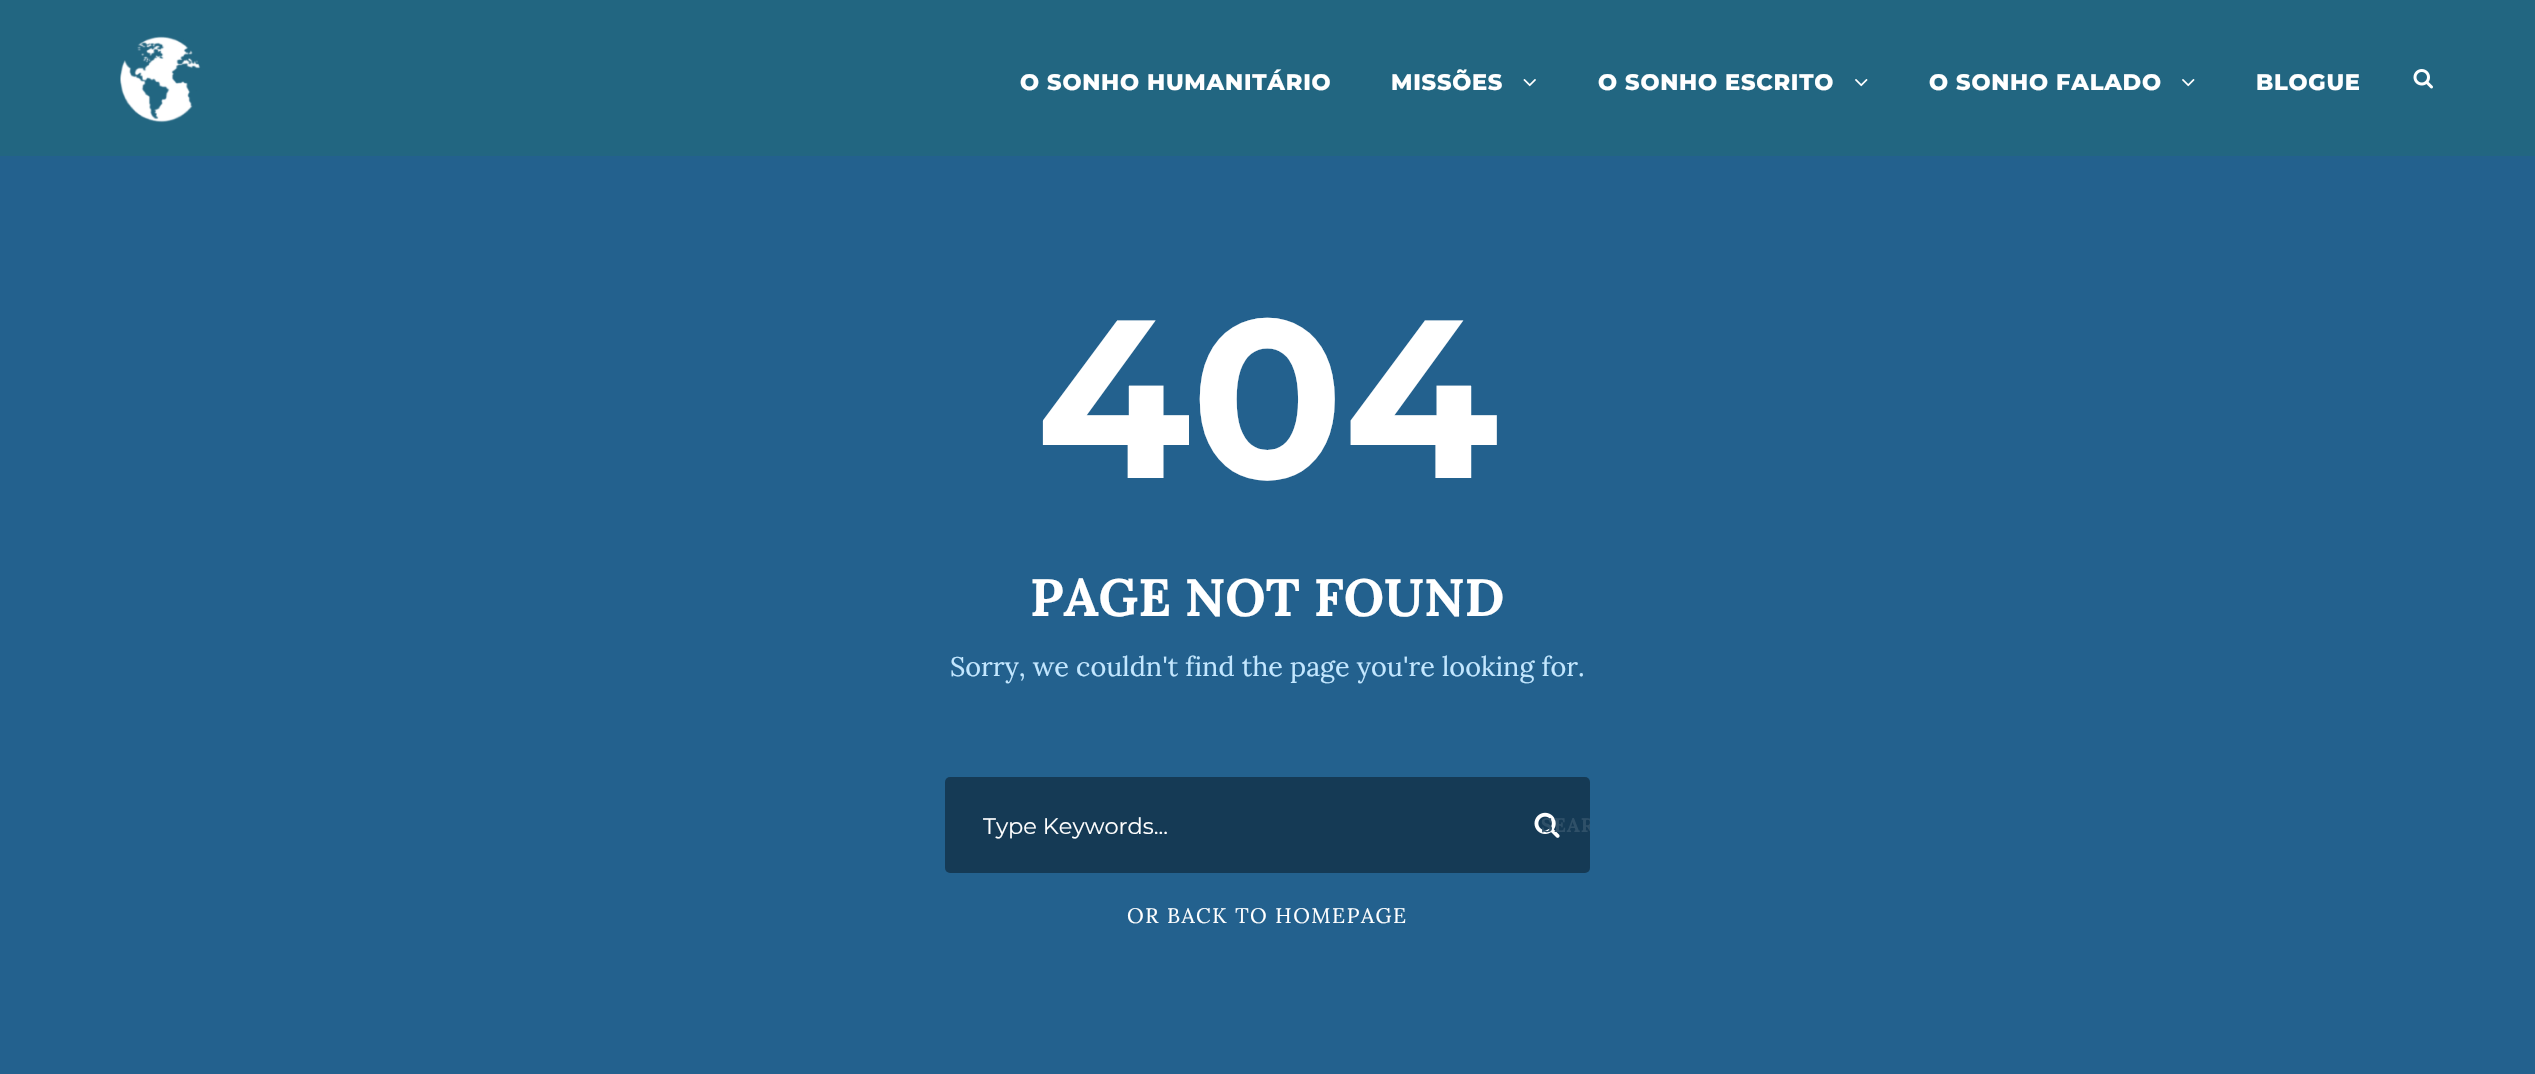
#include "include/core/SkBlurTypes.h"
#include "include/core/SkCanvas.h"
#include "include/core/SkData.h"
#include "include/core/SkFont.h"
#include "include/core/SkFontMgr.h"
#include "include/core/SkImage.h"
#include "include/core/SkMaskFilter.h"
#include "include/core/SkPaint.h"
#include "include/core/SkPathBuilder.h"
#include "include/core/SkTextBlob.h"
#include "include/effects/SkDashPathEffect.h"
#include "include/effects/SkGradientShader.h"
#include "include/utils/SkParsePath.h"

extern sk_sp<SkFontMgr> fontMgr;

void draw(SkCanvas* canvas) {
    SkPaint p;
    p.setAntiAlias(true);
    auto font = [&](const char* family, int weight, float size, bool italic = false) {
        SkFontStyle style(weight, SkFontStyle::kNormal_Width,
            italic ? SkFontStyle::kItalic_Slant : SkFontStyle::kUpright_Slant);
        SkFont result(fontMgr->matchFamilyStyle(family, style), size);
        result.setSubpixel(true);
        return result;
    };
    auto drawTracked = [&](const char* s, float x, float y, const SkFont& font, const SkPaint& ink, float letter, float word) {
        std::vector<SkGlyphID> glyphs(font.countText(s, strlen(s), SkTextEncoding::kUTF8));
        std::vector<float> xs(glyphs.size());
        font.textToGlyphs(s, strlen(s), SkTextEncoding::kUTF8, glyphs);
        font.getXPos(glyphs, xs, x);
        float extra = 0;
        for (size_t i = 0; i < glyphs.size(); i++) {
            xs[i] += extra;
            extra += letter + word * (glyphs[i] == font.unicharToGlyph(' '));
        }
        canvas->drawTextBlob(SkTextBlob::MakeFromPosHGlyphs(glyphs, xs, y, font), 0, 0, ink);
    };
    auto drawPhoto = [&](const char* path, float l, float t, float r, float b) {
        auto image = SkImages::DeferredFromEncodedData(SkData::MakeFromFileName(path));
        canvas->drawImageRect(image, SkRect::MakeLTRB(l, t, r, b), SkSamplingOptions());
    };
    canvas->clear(0xFF226681);
    drawPhoto("media/1.png", 120, 36, 201, 123);
    auto font1 = font("Montserrat", 800, 22.5f);
    p.setColor(0xFFFFFFFF);
    drawTracked("O SONHO HUMANITÁRIO", 1020, 90, font1, p, 0.75f, 0);
    drawTracked("MISSÕES", 1391, 90, font1, p, 0.75f, 0);
    drawPhoto("media/2.png", 1523, 79, 1536, 87);
    drawTracked("O SONHO ESCRITO", 1598, 90, font1, p, 0.75f, 0);
    drawPhoto("media/3.png", 1855, 79, 1868, 87);
    drawTracked("O SONHO FALADO", 1929, 90, font1, p, 0.75f, 0);
    drawPhoto("media/3.png", 2182, 79, 2195, 87);
    drawTracked("BLOGUE", 2256, 90, font1, p, 0.75f, 0);
    drawPhoto("media/4.png", 2413, 69, 2433, 89);
    p.setColor(0xFF23618E);
    canvas->drawRect(SkRect::MakeLTRB(0, 156, 2535, 1074), p);
    auto font2 = font("Montserrat", 700, 225);
    p.setColor(0xFFFFFFFF);
    canvas->drawString("404", 1036, 478, font2, p);
    auto font3 = font("Lora", 700, 52.5f);
    canvas->drawString("PAGE NOT FOUND", 1030, 616, font3, p);
    auto font4 = font("Lora", 400, 27);
    p.setColor(0xFFC3E7FF);
    canvas->drawString("Sorry, we couldn't find the page you're looking for.", 950, 676, font4, p);
    p.setColor(0xFF153A55);
    canvas->drawRoundRect(SkRect::MakeLTRB(945, 777, 1590, 873), 5, 5, p);
    auto font5 = font("Montserrat", 400, 22.5f);
    p.setColor(0xFFFFFFFF);
    canvas->drawString("Type Keywords...", 983, 834, font5, p);
    drawPhoto("media/5.png", 1534, 812, 1560, 838);
    canvas->save();
    canvas->clipRect(SkRect::MakeLTRB(1491, 777, 1590, 873));
    auto font6 = font("Lora", 700, 19.5f);
    p.setColor(0xFF2F5068);
    drawTracked("SEAR", 1541, 832, font6, p, 1, 0);
    canvas->restore();
    auto font7 = font("Lora", 400, 21);
    p.setColor(0xFFFFFFFF);
    drawTracked("OR BACK TO HOMEPAGE", 1127, 923, font7, p, 1.5f, 0);
}
